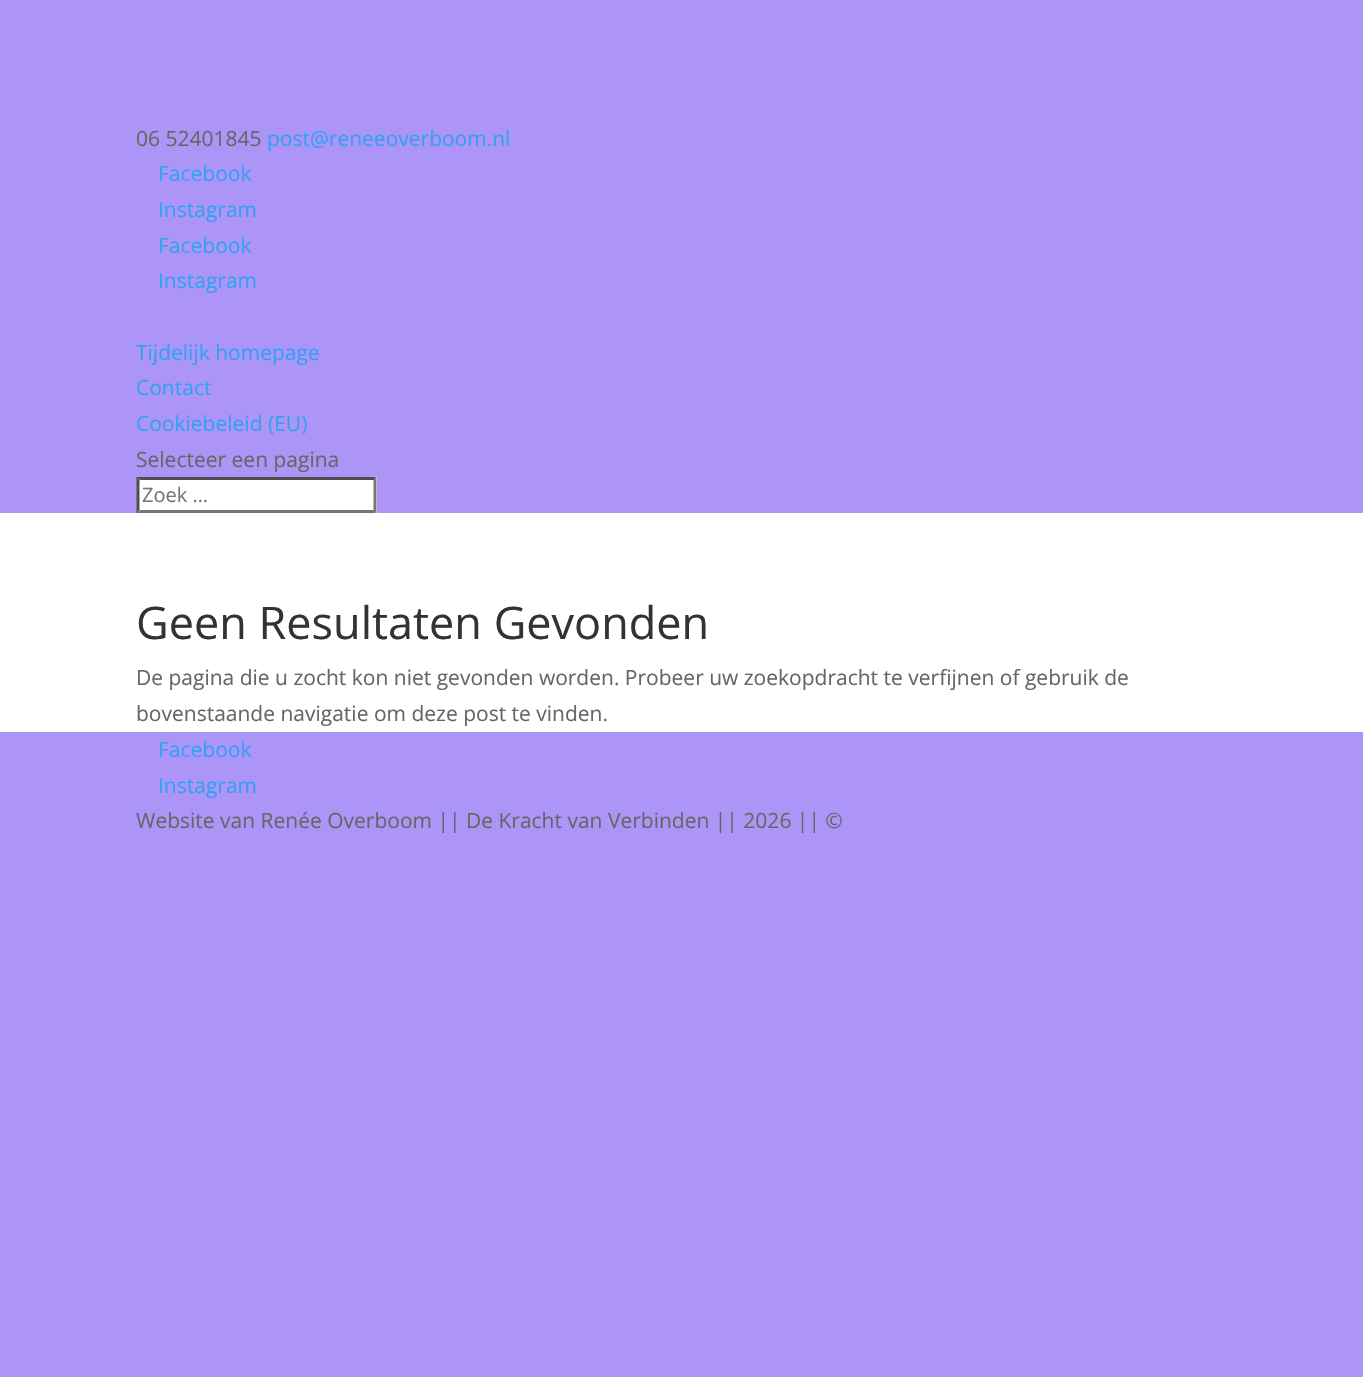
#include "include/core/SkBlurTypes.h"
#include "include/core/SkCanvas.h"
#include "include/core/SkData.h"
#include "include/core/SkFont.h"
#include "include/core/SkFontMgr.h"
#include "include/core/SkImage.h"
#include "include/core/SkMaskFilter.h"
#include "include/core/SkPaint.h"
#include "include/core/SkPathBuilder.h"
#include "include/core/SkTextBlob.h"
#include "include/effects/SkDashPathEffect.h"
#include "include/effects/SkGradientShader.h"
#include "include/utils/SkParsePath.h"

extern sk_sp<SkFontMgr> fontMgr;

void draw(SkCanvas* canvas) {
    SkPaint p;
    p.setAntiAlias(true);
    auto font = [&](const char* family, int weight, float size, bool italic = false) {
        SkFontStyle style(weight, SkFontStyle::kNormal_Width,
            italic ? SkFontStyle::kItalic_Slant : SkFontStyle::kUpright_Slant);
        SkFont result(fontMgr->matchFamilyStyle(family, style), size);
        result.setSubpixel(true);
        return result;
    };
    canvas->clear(0xFFAD94F7);
    auto font1 = font("Open Sans", 400, 21);
    p.setColor(0xFF666666);
    canvas->drawString("06 52401845", 136, 146, font1, p);
    p.setColor(0xFF2EA3F2);
    {
        const struct { const char* s; float x, y; } items[] = {
            {"post@reneeoverboom.nl", 267, 146},
            {"Facebook", 158, 181},
            {"Instagram", 158, 217},
            {"Facebook", 158, 253},
            {"Instagram", 158, 288},
            {"Tijdelijk homepage", 136, 360},
            {"Contact", 136, 395},
            {"Cookiebeleid (EU)", 136, 431},
        };
        for (auto [s, x, y] : items) {
            canvas->drawString(s, x, y, font1, p);
        }
    }
    p.setColor(0xFF666666);
    canvas->drawString("Selecteer een pagina", 136, 467, font1, p);
    p.setColor(0xFFFFFFFF);
    canvas->drawRect(SkRect::MakeLTRB(137, 477, 377, 513), p);
    p.setColor(0xFF4F4F4F);
    canvas->drawPath(SkPathBuilder().moveTo(136, 477).lineTo(376, 477).lineTo(374, 480).lineTo(140, 480).close().detach(), p);
    p.setColor(0xFF767676);
    canvas->drawPath(SkPathBuilder().moveTo(376.5f, 477).lineTo(376.5f, 513).lineTo(373.5f, 510).lineTo(373.5f, 480).close().detach(), p);
    canvas->drawPath(SkPathBuilder().moveTo(376, 513).lineTo(136, 513).lineTo(140, 510).lineTo(374, 510).close().detach(), p);
    p.setColor(0xFF4F4F4F);
    canvas->drawPath(SkPathBuilder().moveTo(136.5f, 513).lineTo(136.5f, 477).lineTo(139.5f, 480).lineTo(139.5f, 510).close().detach(), p);
    auto font2 = font("Open Sans", 400, 20);
    p.setColor(0xFF757575);
    canvas->drawString("Zoek …", 142, 502, font2, p);
    p.setColor(0xFFFFFFFF);
    canvas->drawRect(SkRect::MakeLTRB(0, 513, 1363, 732), p);
    auto font3 = font("Open Sans", 400, 45);
    p.setColor(0xFF333333);
    canvas->drawString("Geen Resultaten Gevonden", 136, 639, font3, p);
    p.setColor(0xFF666666);
    canvas->drawString("De pagina die u zocht kon niet gevonden worden. Probeer uw zoekopdracht te verfijnen of gebruik de", 136, 685, font1, p);
    canvas->drawString("bovenstaande navigatie om deze post te vinden.", 136, 721, font1, p);
    p.setColor(0xFF2EA3F2);
    canvas->drawString("Facebook", 158, 757, font1, p);
    canvas->drawString("Instagram", 158, 793, font1, p);
    p.setColor(0xFF666666);
    canvas->drawString("Website van Renée Overboom || De Kracht van Verbinden || 2026 || ©", 136, 828, font1, p);
}
